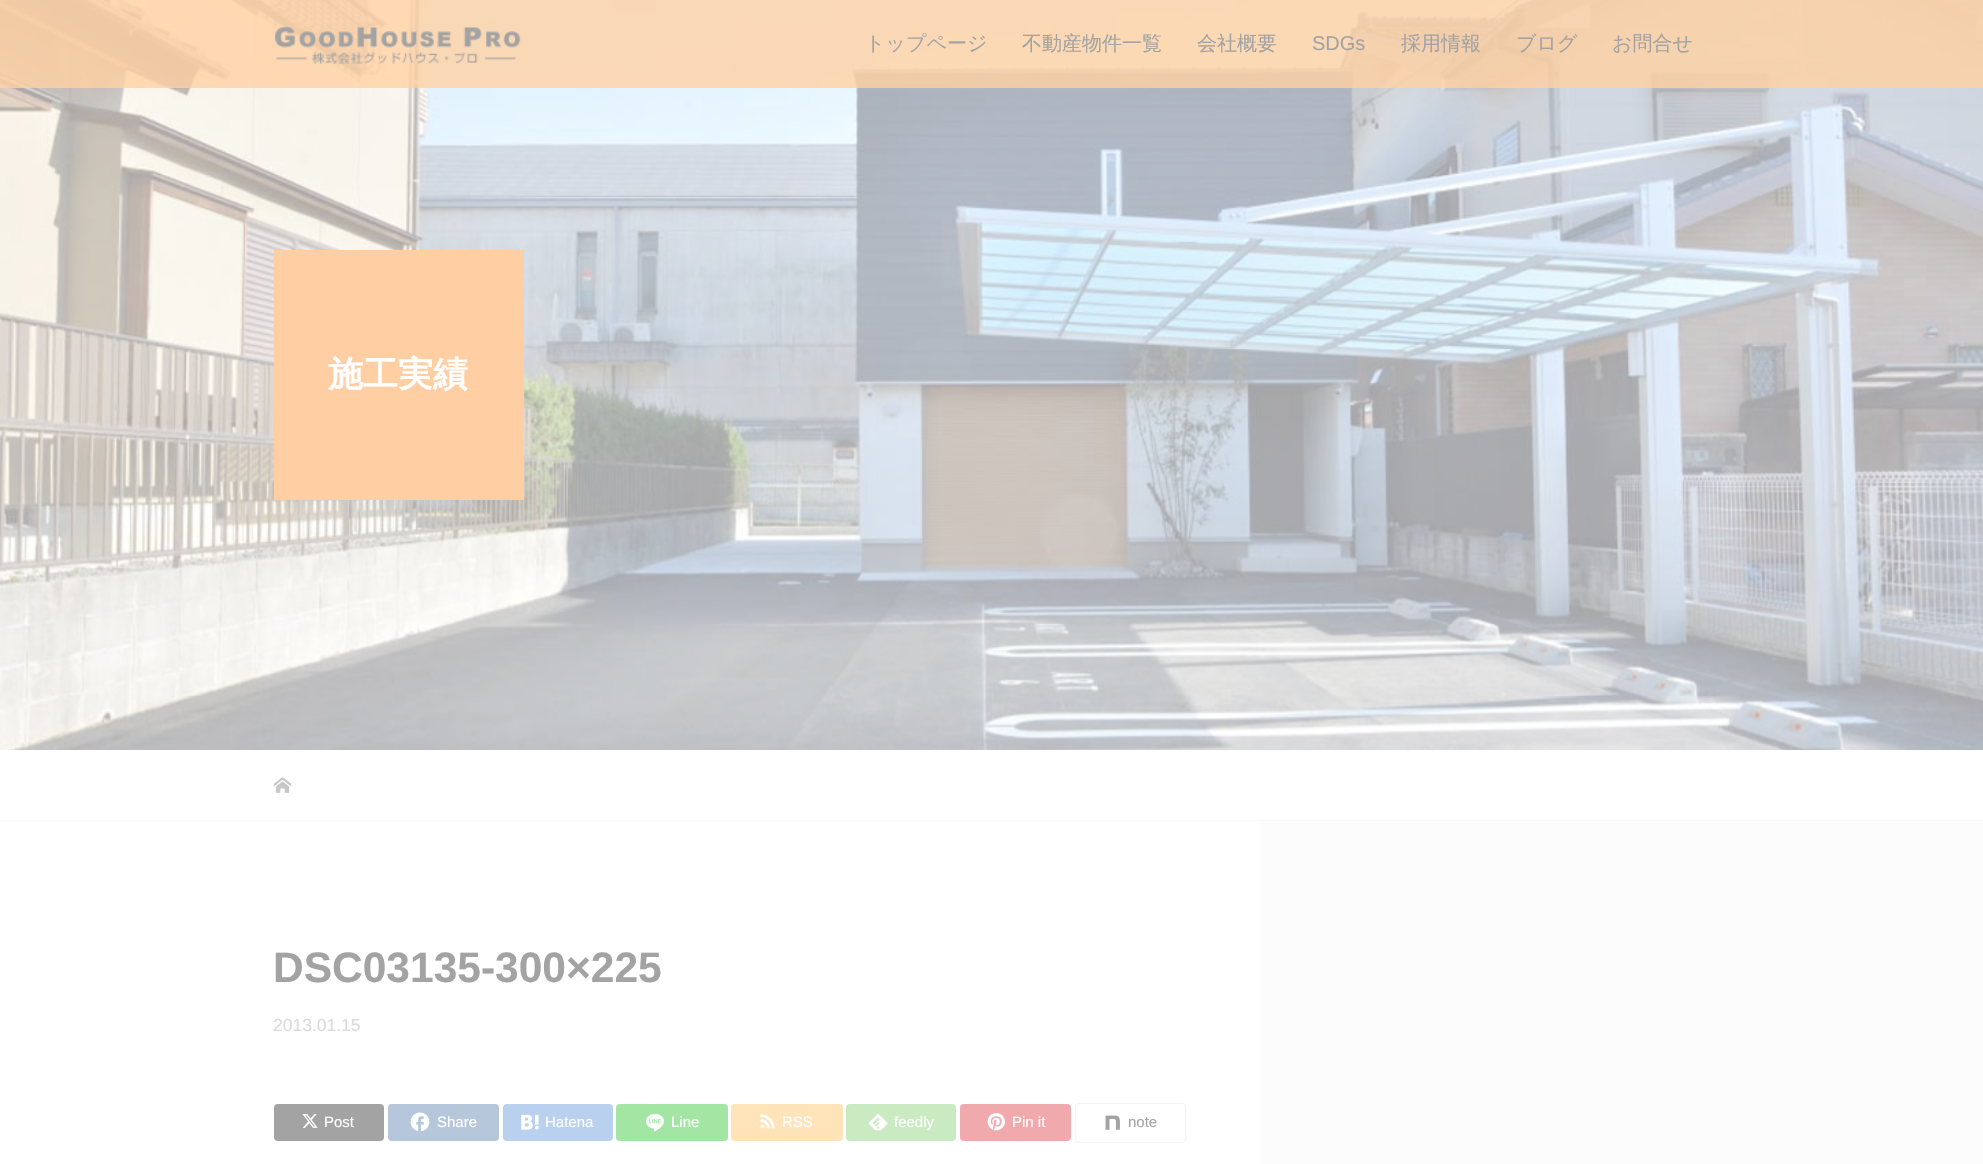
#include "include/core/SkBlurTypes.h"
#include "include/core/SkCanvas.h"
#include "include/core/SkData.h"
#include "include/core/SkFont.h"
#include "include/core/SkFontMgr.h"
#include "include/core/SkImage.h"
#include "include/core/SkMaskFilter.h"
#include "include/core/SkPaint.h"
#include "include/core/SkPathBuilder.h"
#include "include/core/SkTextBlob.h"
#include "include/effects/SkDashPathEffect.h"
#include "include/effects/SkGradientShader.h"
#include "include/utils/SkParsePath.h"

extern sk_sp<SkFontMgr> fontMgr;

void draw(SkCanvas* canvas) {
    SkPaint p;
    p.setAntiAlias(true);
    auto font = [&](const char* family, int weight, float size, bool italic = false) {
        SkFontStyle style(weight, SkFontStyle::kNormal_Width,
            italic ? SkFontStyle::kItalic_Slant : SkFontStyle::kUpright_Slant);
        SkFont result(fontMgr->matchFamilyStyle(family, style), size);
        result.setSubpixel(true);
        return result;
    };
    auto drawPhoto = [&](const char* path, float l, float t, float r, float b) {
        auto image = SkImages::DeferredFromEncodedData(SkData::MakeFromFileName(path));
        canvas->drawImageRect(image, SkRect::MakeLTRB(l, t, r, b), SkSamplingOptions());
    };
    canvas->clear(0xFFFFFFFF);
    drawPhoto("media/2.png", 0, 0, 1983, 750);
    p.setColor(0xCCFFD1A3);
    canvas->drawRect(SkRect::MakeLTRB(0, 0, 1983, 88), p);
    drawPhoto("media/1.png", 274, 26, 521, 64);
    auto font1 = font("WenQuanYi Zen Hei", 500, 20);
    p.setColor(0xFFA3A3A3);
    {
        const struct { const char* s; float x, y; } items[] = {
            {"トップページ", 865, 50},
            {"不動産物件一覧", 1022, 50},
            {"会社概要", 1197, 50},
        };
        for (auto [s, x, y] : items) {
            canvas->drawString(s, x, y, font1, p);
        }
    }
    auto font2 = font("Liberation Sans", 400, 20);
    canvas->drawString("SDGs", 1312, 50, font2, p);
    {
        const struct { const char* s; float x, y; } items[] = {
            {"採用情報", 1401, 50},
            {"ブログ", 1516, 50},
            {"お問合せ", 1612, 50},
        };
        for (auto [s, x, y] : items) {
            canvas->drawString(s, x, y, font1, p);
        }
    }
    p.setColor(0xFFFFCEA3);
    canvas->drawRect(SkRect::MakeLTRB(274, 250, 524, 500), p);
    auto font3 = font("WenQuanYi Zen Hei", 700, 35);
    p.setColor(0xFFFFFFFF);
    canvas->drawString("施工実績", 328, 386, font3, p);
    p.setColor(0xFFF9F9F9);
    canvas->drawRect(SkRect::MakeLTRB(0, 820, 1983, 821), p);
    drawPhoto("media/3.png", 273, 777, 292, 793);
    p.setColor(0xFFFCFCFC);
    canvas->drawRect(SkRect::MakeLTRB(1260, 821, 1983, 1164), p);
    auto font4 = font("Liberation Sans", 700, 42.5f);
    p.setColor(0xFFA3A3A3);
    canvas->drawString("DSC03135-300×225", 273, 982, font4, p);
    auto font5 = font("Liberation Sans", 400, 17.5f);
    p.setColor(0xFFDADADA);
    canvas->drawString("2013.01.15", 273, 1031, font5, p);
    p.setColor(0xFFA3A3A3);
    canvas->drawRoundRect(SkRect::MakeLTRB(274, 1104, 384, 1141), 4, 4, p);
    drawPhoto("media/4.png", 302, 1114, 318, 1128);
    auto font6 = font("Liberation Sans", 400, 15);
    p.setColor(0xFFFFFFFF);
    canvas->drawString("Post", 324, 1127, font6, p);
    p.setColor(0xFFB6C6DB);
    canvas->drawRoundRect(SkRect::MakeLTRB(388, 1104, 499, 1141), 4, 4, p);
    drawPhoto("media/5.png", 410, 1112, 430, 1132);
    p.setColor(0xFFFFFFFF);
    canvas->drawString("Share", 437, 1127, font6, p);
    p.setColor(0xFFB9D0EE);
    canvas->drawRoundRect(SkRect::MakeLTRB(503, 1104, 613, 1141), 4, 4, p);
    drawPhoto("media/6.png", 521, 1114, 539, 1130);
    p.setColor(0xFFFFFFFF);
    canvas->drawString("Hatena", 545, 1127, font6, p);
    p.setColor(0xFFA3E6A3);
    canvas->drawRoundRect(SkRect::MakeLTRB(616, 1104, 728, 1141), 4, 4, p);
    drawPhoto("media/7.png", 646, 1113, 664, 1132);
    p.setColor(0xFFFFFFFF);
    canvas->drawString("Line", 671, 1127, font6, p);
    p.setColor(0xFFFFE4B9);
    canvas->drawRoundRect(SkRect::MakeLTRB(731, 1104, 843, 1141), 4, 4, p);
    drawPhoto("media/8.png", 760, 1114, 775, 1129);
    p.setColor(0xFFFFFFFF);
    canvas->drawString("RSS", 782, 1127, font6, p);
    p.setColor(0xFFCAEAC2);
    canvas->drawRoundRect(SkRect::MakeLTRB(846, 1104, 956, 1141), 4, 4, p);
    drawPhoto("media/9.png", 868, 1114, 888, 1131);
    p.setColor(0xFFFFFFFF);
    canvas->drawString("feedly", 894, 1127, font6, p);
    p.setColor(0xFFF0AAAD);
    canvas->drawRoundRect(SkRect::MakeLTRB(960, 1104, 1071, 1141), 4, 4, p);
    drawPhoto("media/10.png", 987, 1113, 1005, 1131);
    p.setColor(0xFFFFFFFF);
    canvas->drawString("Pin it", 1012, 1127, font6, p);
    p.setStyle(SkPaint::kStroke_Style);
    p.setStrokeWidth(1);
    p.setColor(0xFFF3F3F3);
    canvas->drawRoundRect(SkRect::MakeLTRB(1075.5f, 1103.5f, 1185.5f, 1142.5f), 3.5f, 3.5f, p);
    drawPhoto("media/11.png", 1105, 1115, 1120, 1130);
    p.setStyle(SkPaint::kFill_Style);
    p.setColor(0xFFA3A3A3);
    canvas->drawString("note", 1128, 1127, font6, p);
}
